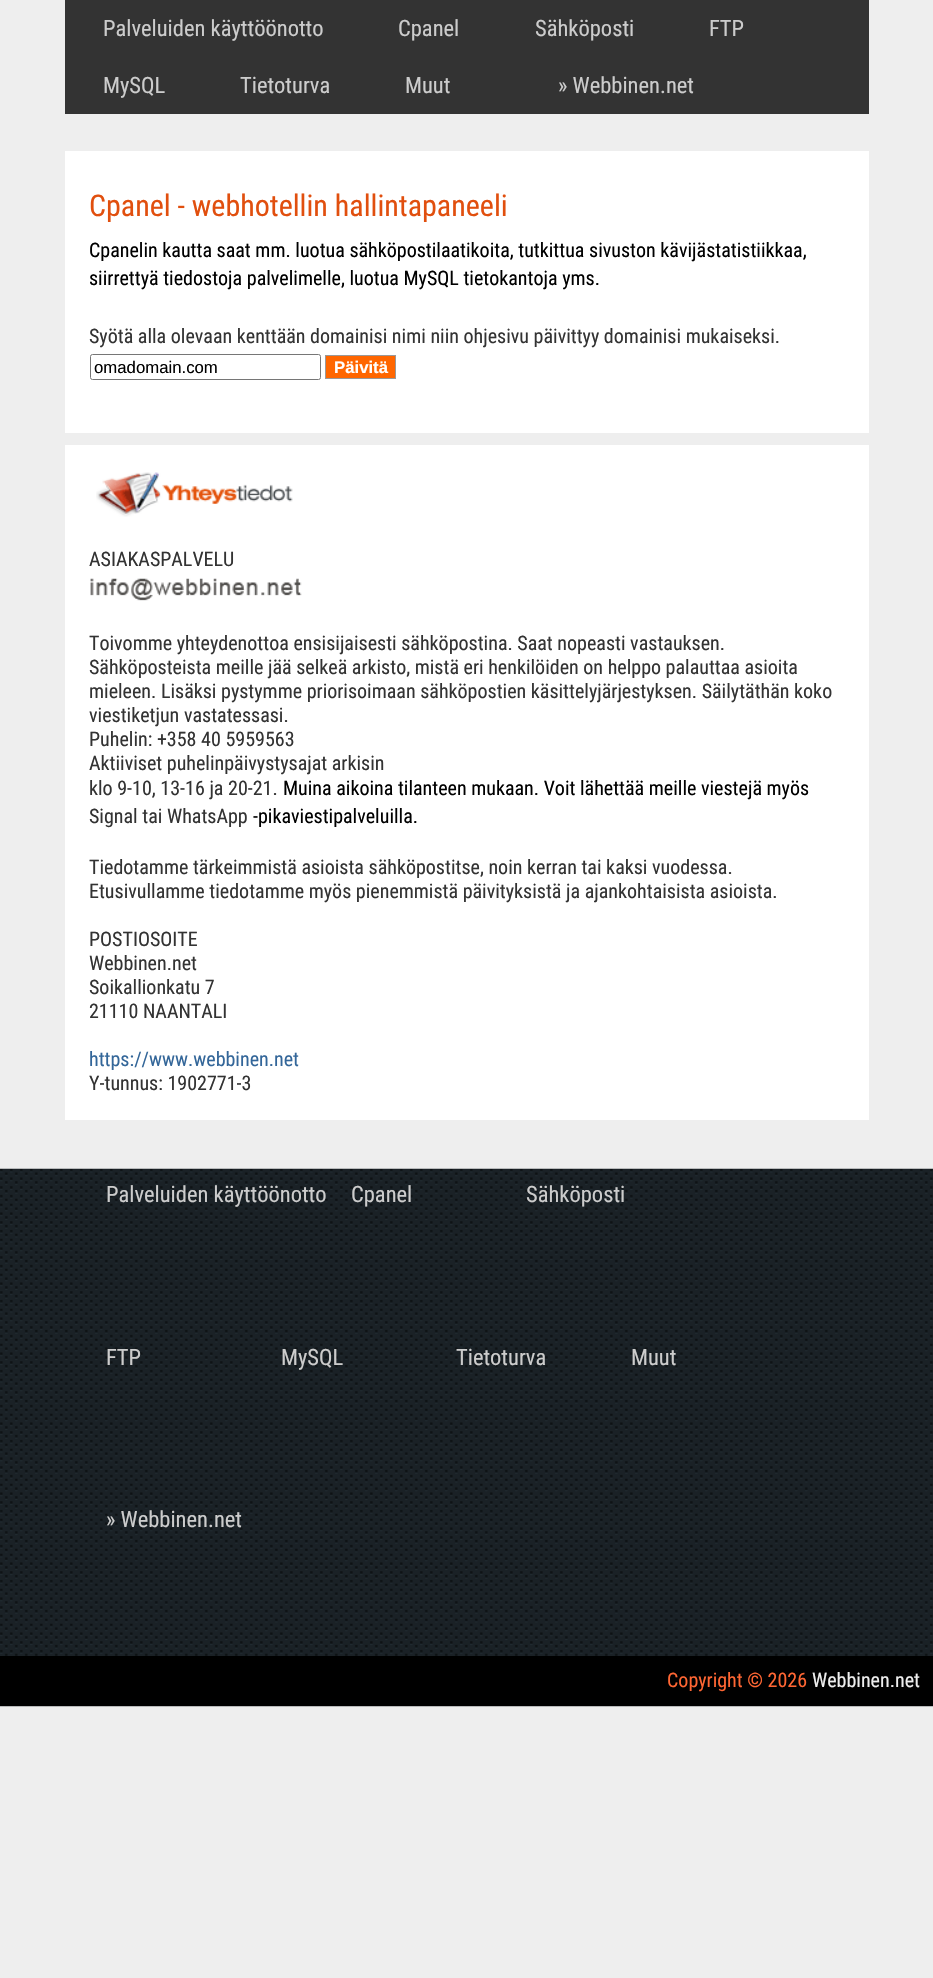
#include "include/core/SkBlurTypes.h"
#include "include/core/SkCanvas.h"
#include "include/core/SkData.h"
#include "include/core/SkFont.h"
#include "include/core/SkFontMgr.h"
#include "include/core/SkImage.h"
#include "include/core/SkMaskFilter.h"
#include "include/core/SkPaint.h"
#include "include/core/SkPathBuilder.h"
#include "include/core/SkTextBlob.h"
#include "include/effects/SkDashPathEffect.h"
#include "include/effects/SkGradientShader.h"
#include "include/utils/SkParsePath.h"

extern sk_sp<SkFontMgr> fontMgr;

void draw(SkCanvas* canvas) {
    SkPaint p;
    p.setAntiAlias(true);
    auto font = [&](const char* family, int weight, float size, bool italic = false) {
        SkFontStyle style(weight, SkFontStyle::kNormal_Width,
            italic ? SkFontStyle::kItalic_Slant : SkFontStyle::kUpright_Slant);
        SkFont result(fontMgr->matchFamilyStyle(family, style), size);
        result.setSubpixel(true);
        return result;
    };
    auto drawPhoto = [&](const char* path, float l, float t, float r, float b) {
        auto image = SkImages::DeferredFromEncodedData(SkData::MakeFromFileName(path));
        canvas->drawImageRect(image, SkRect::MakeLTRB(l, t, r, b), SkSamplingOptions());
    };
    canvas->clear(0xFFEEEEEE);
    p.setColor(0xFF333333);
    canvas->drawRect(SkRect::MakeLTRB(65, 0, 869, 114), p);
    auto font1 = font("Roboto Condensed", 400, 22.5f);
    p.setColor(0xFFCCCCCC);
    {
        const struct { const char* s; float x, y; } items[] = {
            {"Palveluiden käyttöönotto", 103, 36},
            {"Cpanel", 398, 36},
            {"Sähköposti", 535, 36},
            {"FTP", 709, 36},
            {"MySQL", 103, 93},
            {"Tietoturva", 240, 93},
            {"Muut", 405, 93},
            {"» Webbinen.net", 558, 93},
        };
        for (auto [s, x, y] : items) {
            canvas->drawString(s, x, y, font1, p);
        }
    }
    p.setColor(0xFFFFFFFF);
    canvas->drawRect(SkRect::MakeLTRB(65, 151, 869, 433), p);
    auto font2 = font("Roboto Condensed", 400, 30);
    p.setColor(0xFFE14F0E);
    canvas->drawString("Cpanel - webhotellin hallintapaneeli", 89, 216, font2, p);
    auto font3 = font("Roboto Condensed", 400, 20);
    p.setColor(0xFF000000);
    canvas->drawString("Cpanelin kautta saat mm. luotua sähköpostilaatikoita, tutkittua sivuston kävijästatistiikkaa,", 89, 257, font3, p);
    canvas->drawString("siirrettyä tiedostoja palvelimelle, luotua MySQL tietokantoja yms.", 89, 285, font3, p);
    p.setColor(0xFF333333);
    canvas->drawString("Syötä alla olevaan kenttään domainisi nimi niin ohjesivu päivittyy domainisi mukaiseksi.", 89, 343, font3, p);
    p.setStyle(SkPaint::kStroke_Style);
    p.setStrokeWidth(1);
    p.setColor(0xFF767676);
    canvas->drawRoundRect(SkRect::MakeLTRB(90.5f, 354.5f, 320.5f, 379.5f), 2, 2, p);
    auto font4 = font("Liberation Sans", 400, 16.75f);
    p.setStyle(SkPaint::kFill_Style);
    p.setColor(0xFF000000);
    canvas->drawString("omadomain.com", 94, 373, font4, p);
    p.setColor(0xFFFF6600);
    canvas->drawRect(SkRect::MakeLTRB(325.5f, 355.5f, 395.5f, 378.5f), p);
    p.setStyle(SkPaint::kStroke_Style);
    p.setColor(0xFF999999);
    canvas->drawRect(SkRect::MakeLTRB(325.5f, 355.5f, 395.5f, 378.5f), p);
    auto font5 = font("Liberation Sans", 700, 16.75f);
    p.setStyle(SkPaint::kFill_Style);
    p.setColor(0xFFFFFFFF);
    canvas->drawString("Päivitä", 334, 373, font5, p);
    canvas->drawRect(SkRect::MakeLTRB(65, 445, 869, 1120), p);
    drawPhoto("media/1.png", 96, 472, 293, 517);
    p.setColor(0xFF333333);
    canvas->drawString("ASIAKASPALVELU", 89, 566, font3, p);
    drawPhoto("media/2.png", 90, 578, 302, 601);
    {
        const struct { const char* s; float x, y; } items[] = {
            {"Toivomme yhteydenottoa ensisijaisesti sähköpostina. Saat nopeasti vastauksen.", 89, 650},
            {"Sähköposteista meille jää selkeä arkisto, mistä eri henkilöiden on helppo palauttaa asioita", 89, 674},
            {"mieleen. Lisäksi pystymme priorisoimaan sähköpostien käsittelyjärjestyksen. Säilytäthän koko", 89, 698},
            {"viestiketjun vastatessasi.", 89, 722},
            {"Puhelin: +358 40 5959563", 89, 746},
            {"Aktiiviset puhelinpäivystysajat arkisin", 89, 770},
            {"klo 9-10, 13-16 ja 20-21.", 89, 795},
        };
        for (auto [s, x, y] : items) {
            canvas->drawString(s, x, y, font3, p);
        }
    }
    p.setColor(0xFF000000);
    canvas->drawString("Muina aikoina tilanteen mukaan. Voit lähettää meille viestejä myös", 283, 795, font3, p);
    p.setColor(0xFF333333);
    canvas->drawString("Signal tai WhatsApp", 89, 823, font3, p);
    p.setColor(0xFF000000);
    canvas->drawString("-pikaviestipalveluilla.", 253, 823, font3, p);
    p.setColor(0xFF333333);
    {
        const struct { const char* s; float x, y; } items[] = {
            {"Tiedotamme tärkeimmistä asioista sähköpostitse, noin kerran tai kaksi vuodessa.", 89, 874},
            {"Etusivullamme tiedotamme myös pienemmistä päivityksistä ja ajankohtaisista asioista.", 89, 898},
            {"POSTIOSOITE", 89, 946},
            {"Webbinen.net", 89, 970},
            {"Soikallionkatu 7", 89, 994},
            {"21110 NAANTALI", 89, 1018},
        };
        for (auto [s, x, y] : items) {
            canvas->drawString(s, x, y, font3, p);
        }
    }
    p.setColor(0xFF336699);
    canvas->drawString("https://www.webbinen.net", 89, 1066, font3, p);
    p.setColor(0xFF333333);
    canvas->drawString("Y-tunnus: 1902771-3", 89, 1090, font3, p);
    drawPhoto("media/3.png", 0, 1168, 933, 1707);
    p.setColor(0xFFCCCCCC);
    {
        const struct { const char* s; float x, y; } items[] = {
            {"Palveluiden käyttöönotto", 106, 1202},
            {"Cpanel", 351, 1202},
            {"Sähköposti", 526, 1202},
            {"FTP", 106, 1365},
            {"MySQL", 281, 1365},
            {"Tietoturva", 456, 1365},
            {"Muut", 631, 1365},
            {"» Webbinen.net", 106, 1527},
        };
        for (auto [s, x, y] : items) {
            canvas->drawString(s, x, y, font1, p);
        }
    }
    p.setColor(0xFF000000);
    canvas->drawRect(SkRect::MakeLTRB(0, 1656, 933, 1706), p);
    p.setColor(0xFFFF6633);
    canvas->drawString("Copyright © 2026", 667, 1687, font3, p);
    p.setColor(0xFFEEEEEE);
    canvas->drawString("Webbinen.net", 812, 1687, font3, p);
}
